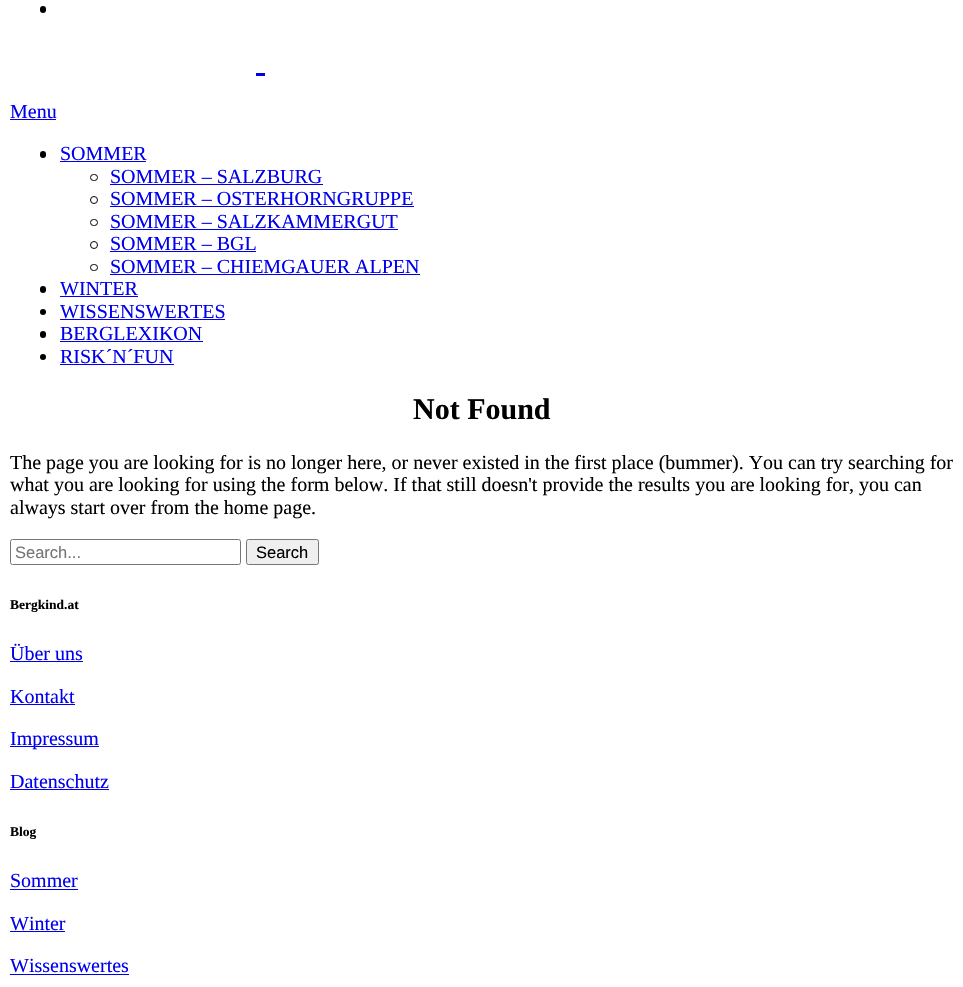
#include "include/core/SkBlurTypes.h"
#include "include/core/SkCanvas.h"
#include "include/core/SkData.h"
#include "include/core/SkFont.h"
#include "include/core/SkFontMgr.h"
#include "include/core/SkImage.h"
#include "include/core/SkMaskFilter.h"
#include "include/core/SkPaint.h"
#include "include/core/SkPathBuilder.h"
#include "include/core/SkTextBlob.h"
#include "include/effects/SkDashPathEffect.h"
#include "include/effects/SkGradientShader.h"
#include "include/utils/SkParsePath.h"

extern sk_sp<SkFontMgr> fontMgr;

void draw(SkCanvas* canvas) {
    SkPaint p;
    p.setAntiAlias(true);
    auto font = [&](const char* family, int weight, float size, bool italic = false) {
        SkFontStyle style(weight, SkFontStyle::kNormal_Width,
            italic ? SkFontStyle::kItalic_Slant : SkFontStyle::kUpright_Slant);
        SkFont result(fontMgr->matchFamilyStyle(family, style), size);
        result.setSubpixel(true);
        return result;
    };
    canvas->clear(0xFFFFFFFF);
    p.setColor(0xFF000000);
    canvas->drawRoundRect(SkRect::MakeLTRB(40, 6, 46, 13), 3, 3, p);
    p.setColor(0xFF0000EE);
    canvas->drawRect(SkRect::MakeLTRB(256, 73, 265, 76), p);
    auto font1 = font("Liberation Serif", 400, 20);
    canvas->drawString("Menu", 10, 118, font1, p);
    canvas->drawRect(SkRect::MakeLTRB(10, 119, 56, 120), p);
    p.setColor(0xFF000000);
    canvas->drawRoundRect(SkRect::MakeLTRB(40, 151, 46, 158), 3, 3, p);
    p.setColor(0xFF0000EE);
    canvas->drawString("SOMMER", 60, 160, font1, p);
    canvas->drawRect(SkRect::MakeLTRB(60, 161, 146, 162), p);
    p.setStyle(SkPaint::kStroke_Style);
    p.setStrokeWidth(1);
    p.setColor(0xFF000000);
    canvas->drawRoundRect(SkRect::MakeLTRB(90.5f, 174.5f, 97.5f, 180.5f), 3, 3, p);
    p.setStyle(SkPaint::kFill_Style);
    p.setColor(0xFF0000EE);
    canvas->drawString("SOMMER – SALZBURG", 110, 183, font1, p);
    canvas->drawRect(SkRect::MakeLTRB(110, 184, 323, 185), p);
    p.setStyle(SkPaint::kStroke_Style);
    p.setColor(0xFF000000);
    canvas->drawCircle(94, 200, 3.5f, p);
    p.setStyle(SkPaint::kFill_Style);
    p.setColor(0xFF0000EE);
    canvas->drawString("SOMMER – OSTERHORNGRUPPE", 110, 205, font1, p);
    canvas->drawRect(SkRect::MakeLTRB(110, 206, 414, 207), p);
    p.setStyle(SkPaint::kStroke_Style);
    p.setColor(0xFF000000);
    canvas->drawRoundRect(SkRect::MakeLTRB(90.5f, 219.5f, 97.5f, 225.5f), 3, 3, p);
    p.setStyle(SkPaint::kFill_Style);
    p.setColor(0xFF0000EE);
    canvas->drawString("SOMMER – SALZKAMMERGUT", 110, 228, font1, p);
    canvas->drawRect(SkRect::MakeLTRB(110, 229, 398, 230), p);
    p.setStyle(SkPaint::kStroke_Style);
    p.setColor(0xFF000000);
    canvas->drawCircle(94, 245, 3.5f, p);
    p.setStyle(SkPaint::kFill_Style);
    p.setColor(0xFF0000EE);
    canvas->drawString("SOMMER – BGL", 110, 250, font1, p);
    canvas->drawRect(SkRect::MakeLTRB(110, 251, 256, 252), p);
    p.setStyle(SkPaint::kStroke_Style);
    p.setColor(0xFF000000);
    canvas->drawRoundRect(SkRect::MakeLTRB(90.5f, 264.5f, 97.5f, 270.5f), 3, 3, p);
    p.setStyle(SkPaint::kFill_Style);
    p.setColor(0xFF0000EE);
    canvas->drawString("SOMMER – CHIEMGAUER ALPEN", 110, 273, font1, p);
    canvas->drawRect(SkRect::MakeLTRB(110, 274, 420, 275), p);
    p.setColor(0xFF000000);
    canvas->drawRoundRect(SkRect::MakeLTRB(40, 286, 46, 293), 3, 3, p);
    p.setColor(0xFF0000EE);
    canvas->drawString("WINTER", 60, 295, font1, p);
    canvas->drawRect(SkRect::MakeLTRB(60, 296, 138, 297), p);
    p.setColor(0xFF000000);
    canvas->drawCircle(43, 312, 3, p);
    p.setColor(0xFF0000EE);
    canvas->drawString("WISSENSWERTES", 60, 318, font1, p);
    canvas->drawRect(SkRect::MakeLTRB(60, 319, 225, 320), p);
    p.setColor(0xFF000000);
    canvas->drawRoundRect(SkRect::MakeLTRB(40, 331, 46, 338), 3, 3, p);
    p.setColor(0xFF0000EE);
    canvas->drawString("BERGLEXIKON", 60, 340, font1, p);
    canvas->drawRect(SkRect::MakeLTRB(60, 341, 203, 342), p);
    p.setColor(0xFF000000);
    canvas->drawCircle(43, 357, 3, p);
    p.setColor(0xFF0000EE);
    canvas->drawString("RISK´N´FUN", 60, 363, font1, p);
    canvas->drawRect(SkRect::MakeLTRB(60, 364, 174, 365), p);
    auto font2 = font("Liberation Serif", 700, 30);
    p.setColor(0xFF000000);
    canvas->drawString("Not Found", 413, 419, font2, p);
    {
        const struct { const char* s; float x, y; } items[] = {
            {"The page you are looking for is no longer here, or never existed in the first place (bummer). You can try searching for", 10, 469},
            {"what you are looking for using the form below. If that still doesn't provide the results you are looking for, you can", 10, 491},
            {"always start over from the home page.", 10, 514},
        };
        for (auto [s, x, y] : items) {
            canvas->drawString(s, x, y, font1, p);
        }
    }
    p.setStyle(SkPaint::kStroke_Style);
    p.setColor(0xFF767676);
    canvas->drawRoundRect(SkRect::MakeLTRB(10.5f, 539.5f, 240.5f, 564.5f), 2, 2, p);
    auto font3 = font("Liberation Sans", 400, 16.5f);
    p.setStyle(SkPaint::kFill_Style);
    p.setColor(0xFF757575);
    canvas->drawString("Search...", 15, 558, font3, p);
    p.setColor(0xFFEFEFEF);
    canvas->drawRoundRect(SkRect::MakeLTRB(246.5f, 539.5f, 318.5f, 564.5f), 2, 2, p);
    p.setStyle(SkPaint::kStroke_Style);
    p.setColor(0xFF767676);
    canvas->drawRoundRect(SkRect::MakeLTRB(246.5f, 539.5f, 318.5f, 564.5f), 2, 2, p);
    p.setStyle(SkPaint::kFill_Style);
    p.setColor(0xFF000000);
    canvas->drawString("Search", 256, 558, font3, p);
    auto font4 = font("Liberation Serif", 700, 13.5f);
    canvas->drawString("Bergkind.at", 10, 609, font4, p);
    p.setColor(0xFF0000EE);
    canvas->drawString("Über uns", 10, 660, font1, p);
    canvas->drawRect(SkRect::MakeLTRB(10, 661, 83, 662), p);
    canvas->drawString("Kontakt", 10, 703, font1, p);
    canvas->drawRect(SkRect::MakeLTRB(10, 704, 75, 705), p);
    canvas->drawRect(SkRect::MakeLTRB(10, 746, 99, 747), p);
    canvas->drawString("Impressum", 10, 745, font1, p);
    canvas->drawString("Datenschutz", 10, 788, font1, p);
    canvas->drawRect(SkRect::MakeLTRB(10, 789, 109, 790), p);
    p.setColor(0xFF000000);
    canvas->drawString("Blog", 10, 836, font4, p);
    p.setColor(0xFF0000EE);
    canvas->drawString("Sommer", 10, 887, font1, p);
    canvas->drawRect(SkRect::MakeLTRB(10, 889, 78, 890), p);
    canvas->drawString("Winter", 10, 930, font1, p);
    canvas->drawRect(SkRect::MakeLTRB(10, 931, 65, 932), p);
    canvas->drawString("Wissenswertes", 10, 972, font1, p);
    canvas->drawRect(SkRect::MakeLTRB(10, 974, 129, 975), p);
}
